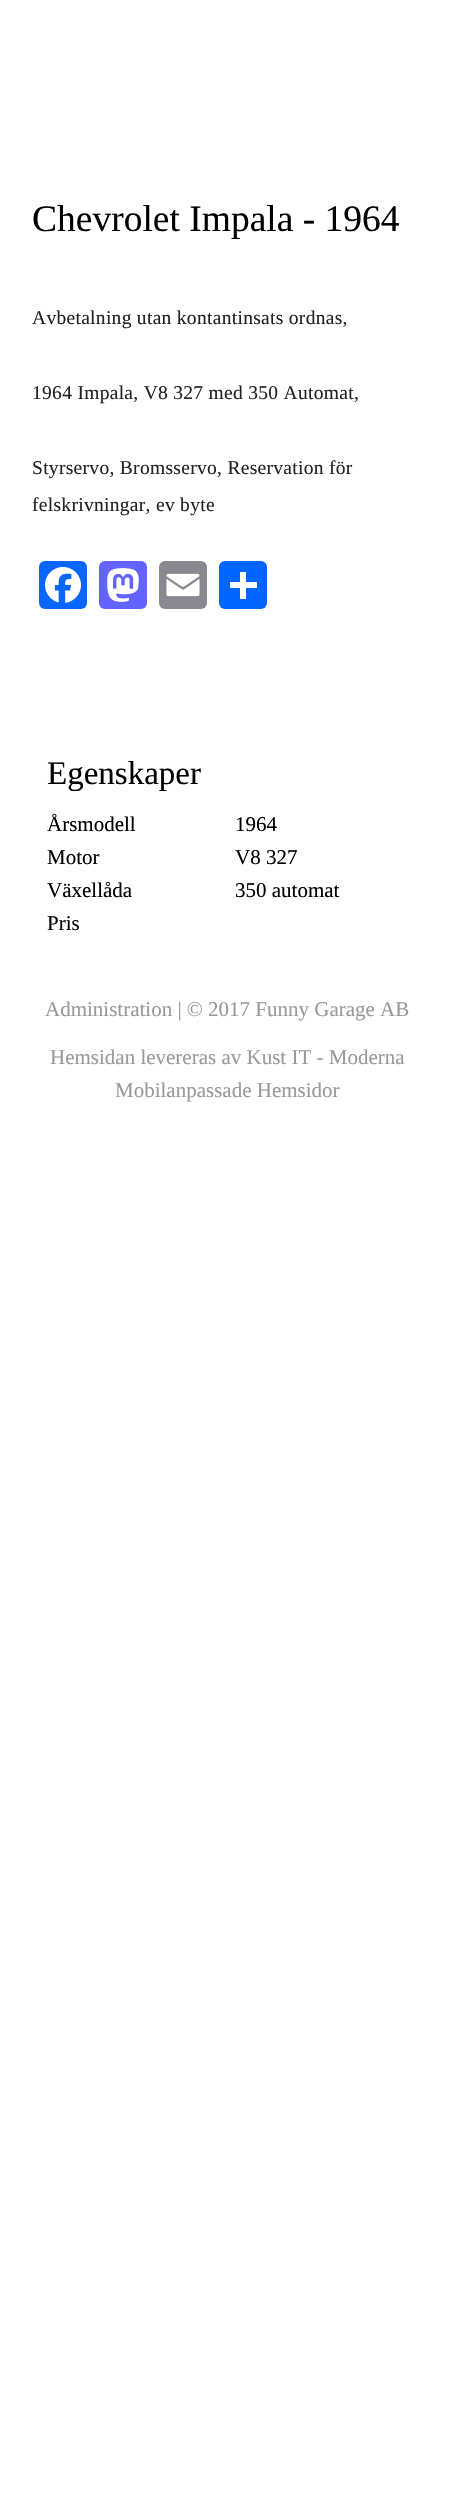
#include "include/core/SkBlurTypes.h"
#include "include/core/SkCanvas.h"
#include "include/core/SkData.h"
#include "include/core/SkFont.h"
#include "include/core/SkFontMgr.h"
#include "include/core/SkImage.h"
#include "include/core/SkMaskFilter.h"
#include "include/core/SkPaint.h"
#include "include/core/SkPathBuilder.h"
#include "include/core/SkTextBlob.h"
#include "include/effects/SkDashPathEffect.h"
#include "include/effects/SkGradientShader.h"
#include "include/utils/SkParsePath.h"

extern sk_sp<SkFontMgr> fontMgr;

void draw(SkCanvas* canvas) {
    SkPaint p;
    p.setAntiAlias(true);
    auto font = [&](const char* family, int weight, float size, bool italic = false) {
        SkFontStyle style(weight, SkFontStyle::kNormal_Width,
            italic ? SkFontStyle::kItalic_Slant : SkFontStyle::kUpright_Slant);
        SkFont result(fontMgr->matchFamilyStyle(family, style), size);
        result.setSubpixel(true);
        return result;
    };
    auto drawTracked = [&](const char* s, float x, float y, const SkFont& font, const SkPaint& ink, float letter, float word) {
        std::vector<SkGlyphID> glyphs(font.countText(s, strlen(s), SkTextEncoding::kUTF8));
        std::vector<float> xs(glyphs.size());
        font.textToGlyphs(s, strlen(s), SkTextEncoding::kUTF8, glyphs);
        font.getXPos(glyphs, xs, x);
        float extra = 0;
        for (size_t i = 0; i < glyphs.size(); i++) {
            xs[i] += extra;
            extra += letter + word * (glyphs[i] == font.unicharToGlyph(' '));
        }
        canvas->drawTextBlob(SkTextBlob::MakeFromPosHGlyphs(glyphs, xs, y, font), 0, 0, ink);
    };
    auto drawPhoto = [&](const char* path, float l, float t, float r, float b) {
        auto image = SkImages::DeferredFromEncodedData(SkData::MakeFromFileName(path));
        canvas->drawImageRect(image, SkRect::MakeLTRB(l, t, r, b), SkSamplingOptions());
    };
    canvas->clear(0xFFFFFFFF);
    auto font1 = font("Liberation Serif", 400, 37.5f);
    p.setColor(0xFF000000);
    canvas->drawString("Chevrolet Impala - 1964", 32, 231, font1, p);
    auto font2 = font("Liberation Serif", 400, 19.5f);
    p.setColor(0xFF222222);
    {
        const struct { const char* s; float x, y; } items[] = {
            {"Avbetalning utan kontantinsats ordnas,", 32, 324},
            {"1964 Impala, V8 327 med 350 Automat,", 32, 399},
            {"Styrservo, Bromsservo, Reservation för", 32, 474},
            {"felskrivningar, ev byte", 32, 511},
        };
        for (auto [s, x, y] : items) {
            drawTracked(s, x, y, font2, p, 0.3f, 0);
        }
    }
    p.setColor(0xFF0866FF);
    canvas->drawRoundRect(SkRect::MakeLTRB(39, 561, 87, 609), 6, 6, p);
    drawPhoto("media/1.png", 45, 567, 81, 603);
    p.setColor(0xFF6364FF);
    canvas->drawRoundRect(SkRect::MakeLTRB(99, 561, 147, 609), 6, 6, p);
    drawPhoto("media/2.png", 107, 568, 139, 602);
    p.setColor(0xFF888990);
    canvas->drawRoundRect(SkRect::MakeLTRB(159, 561, 207, 609), 6, 6, p);
    drawPhoto("media/3.png", 166, 573, 200, 597);
    p.setColor(0xFF0166FF);
    canvas->drawRoundRect(SkRect::MakeLTRB(219, 561, 267, 609), 6, 6, p);
    p.setColor(0xFFFFFFFF);
    canvas->drawRect(SkRect::MakeLTRB(240, 572, 246, 599), p);
    canvas->drawRect(SkRect::MakeLTRB(230, 582, 257, 588), p);
    auto font3 = font("Liberation Serif", 400, 33);
    p.setColor(0xFF000000);
    canvas->drawString("Egenskaper", 47, 784, font3, p);
    auto font4 = font("Liberation Serif", 400, 21);
    {
        const struct { const char* s; float x, y; } items[] = {
            {"Årsmodell", 47, 831},
            {"1964", 235, 831},
            {"Motor", 47, 864},
            {"V8 327", 235, 864},
            {"Växellåda", 47, 897},
            {"350 automat", 235, 897},
            {"Pris", 47, 930},
        };
        for (auto [s, x, y] : items) {
            canvas->drawString(s, x, y, font4, p);
        }
    }
    p.setColor(0xFF999999);
    {
        const struct { const char* s; float x, y; } items[] = {
            {"Administration | © 2017 Funny Garage AB", 45, 1016},
            {"Hemsidan levereras av Kust IT - Moderna", 50, 1064},
            {"Mobilanpassade Hemsidor", 115, 1097},
        };
        for (auto [s, x, y] : items) {
            canvas->drawString(s, x, y, font4, p);
        }
    }
}
